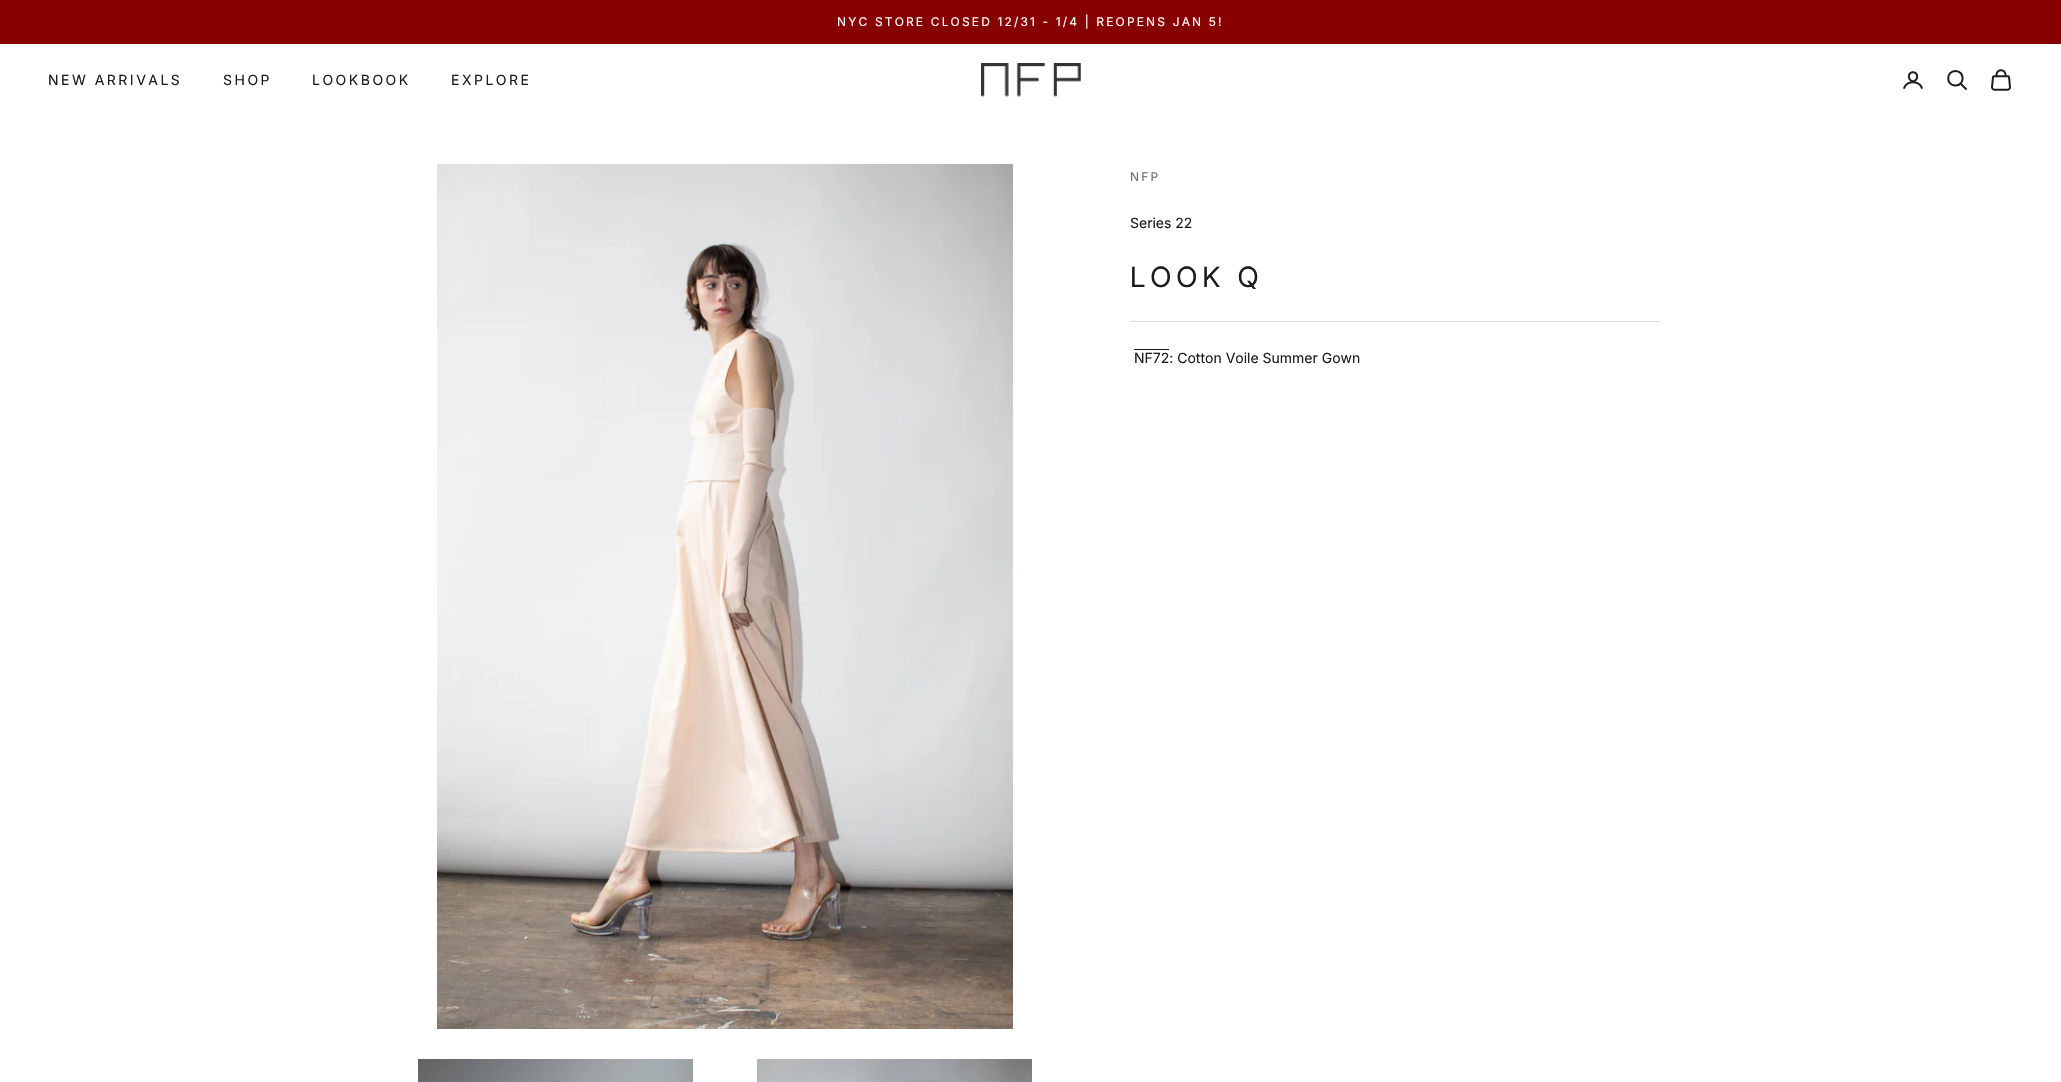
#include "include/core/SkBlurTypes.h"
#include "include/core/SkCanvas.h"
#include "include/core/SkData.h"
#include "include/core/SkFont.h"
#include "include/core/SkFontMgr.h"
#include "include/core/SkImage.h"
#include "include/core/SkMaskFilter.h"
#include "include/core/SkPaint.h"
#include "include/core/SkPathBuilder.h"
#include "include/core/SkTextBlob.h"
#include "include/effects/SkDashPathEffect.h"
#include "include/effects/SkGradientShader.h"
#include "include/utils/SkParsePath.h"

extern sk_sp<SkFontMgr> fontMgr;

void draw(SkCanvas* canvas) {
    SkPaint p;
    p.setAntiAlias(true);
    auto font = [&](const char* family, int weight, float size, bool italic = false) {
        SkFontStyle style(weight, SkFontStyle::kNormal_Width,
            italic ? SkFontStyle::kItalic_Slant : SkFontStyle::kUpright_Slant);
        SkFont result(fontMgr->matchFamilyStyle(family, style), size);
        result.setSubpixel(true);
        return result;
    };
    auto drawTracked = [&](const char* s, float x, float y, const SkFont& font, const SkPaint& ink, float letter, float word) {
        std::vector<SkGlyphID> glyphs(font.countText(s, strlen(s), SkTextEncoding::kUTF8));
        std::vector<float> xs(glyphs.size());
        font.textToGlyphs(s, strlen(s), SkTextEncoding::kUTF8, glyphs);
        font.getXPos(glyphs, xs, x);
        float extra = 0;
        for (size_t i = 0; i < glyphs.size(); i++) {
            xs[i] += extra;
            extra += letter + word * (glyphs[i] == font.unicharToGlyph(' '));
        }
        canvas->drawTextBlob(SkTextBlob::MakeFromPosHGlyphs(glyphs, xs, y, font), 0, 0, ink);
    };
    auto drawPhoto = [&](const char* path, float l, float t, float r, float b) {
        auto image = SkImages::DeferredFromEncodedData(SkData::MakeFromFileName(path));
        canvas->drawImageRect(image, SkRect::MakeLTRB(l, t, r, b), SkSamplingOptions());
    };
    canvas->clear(0xFFFFFFFF);
    p.setColor(0xFF870100);
    canvas->drawRect(SkRect::MakeLTRB(0, 0, 2061, 44), p);
    auto font1 = font("Inter", 400, 12);
    p.setColor(0xFFFFFFFF);
    drawTracked("NYC STORE CLOSED 12/31 - 1/4 | REOPENS JAN 5!", 837, 26, font1, p, 2.15f, 0);
    auto font2 = font("Inter", 400, 14);
    p.setColor(0xFF1C1C1C);
    {
        const struct { const char* s; float x, y; } items[] = {
            {"NEW ARRIVALS", 48, 85},
            {"SHOP", 223, 85},
            {"LOOKBOOK", 312, 85},
            {"EXPLORE", 451, 85},
        };
        for (auto [s, x, y] : items) {
            drawTracked(s, x, y, font2, p, 2.5f, 0);
        }
    }
    drawPhoto("media/1.png", 981, 63, 1081, 97);
    drawPhoto("media/2.png", 1903, 71, 1923, 89);
    p.setStyle(SkPaint::kStroke_Style);
    p.setStrokeWidth(2);
    canvas->drawPath(SkPathBuilder().moveTo(1955.5f, 71).cubicTo(1945.5f, 71, 1946, 86, 1955.5f, 85.5f).cubicTo(1965, 85.5f, 1965, 71, 1955.5f, 71).close().detach(), p);
    p.setStrokeCap(SkPaint::kRound_Cap);
    canvas->drawPath(SkPathBuilder().moveTo(1961, 84).lineTo(1966, 89).detach(), p);
    drawPhoto("media/3.png", 1991, 69, 2011, 91);
    drawPhoto("media/4.png", 437, 164, 1013, 1029);
    drawPhoto("media/5.png", 418, 1059, 693, 1082);
    drawPhoto("media/6.png", 757, 1059, 1032, 1082);
    p.setStyle(SkPaint::kFill_Style);
    p.setColor(0xFF6B6B6B);
    drawTracked("NFP", 1130, 181, font1, p, 2.15f, 0);
    p.setColor(0xFF1C1C1C);
    canvas->drawString("Series 22", 1130, 228, font2, p);
    auto font3 = font("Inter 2", 400, 28);
    drawTracked("LOOK Q", 1130, 287, font3, p, 5, 0);
    p.setColor(0xFFDDDDDD);
    canvas->drawRect(SkRect::MakeLTRB(1130, 321, 1661, 322), p);
    p.setColor(0xFF1C1C1C);
    canvas->drawString("NF72: Cotton Voile Summer Gown", 1134, 363, font2, p);
    canvas->drawRect(SkRect::MakeLTRB(1134, 349, 1169, 350), p);
}
